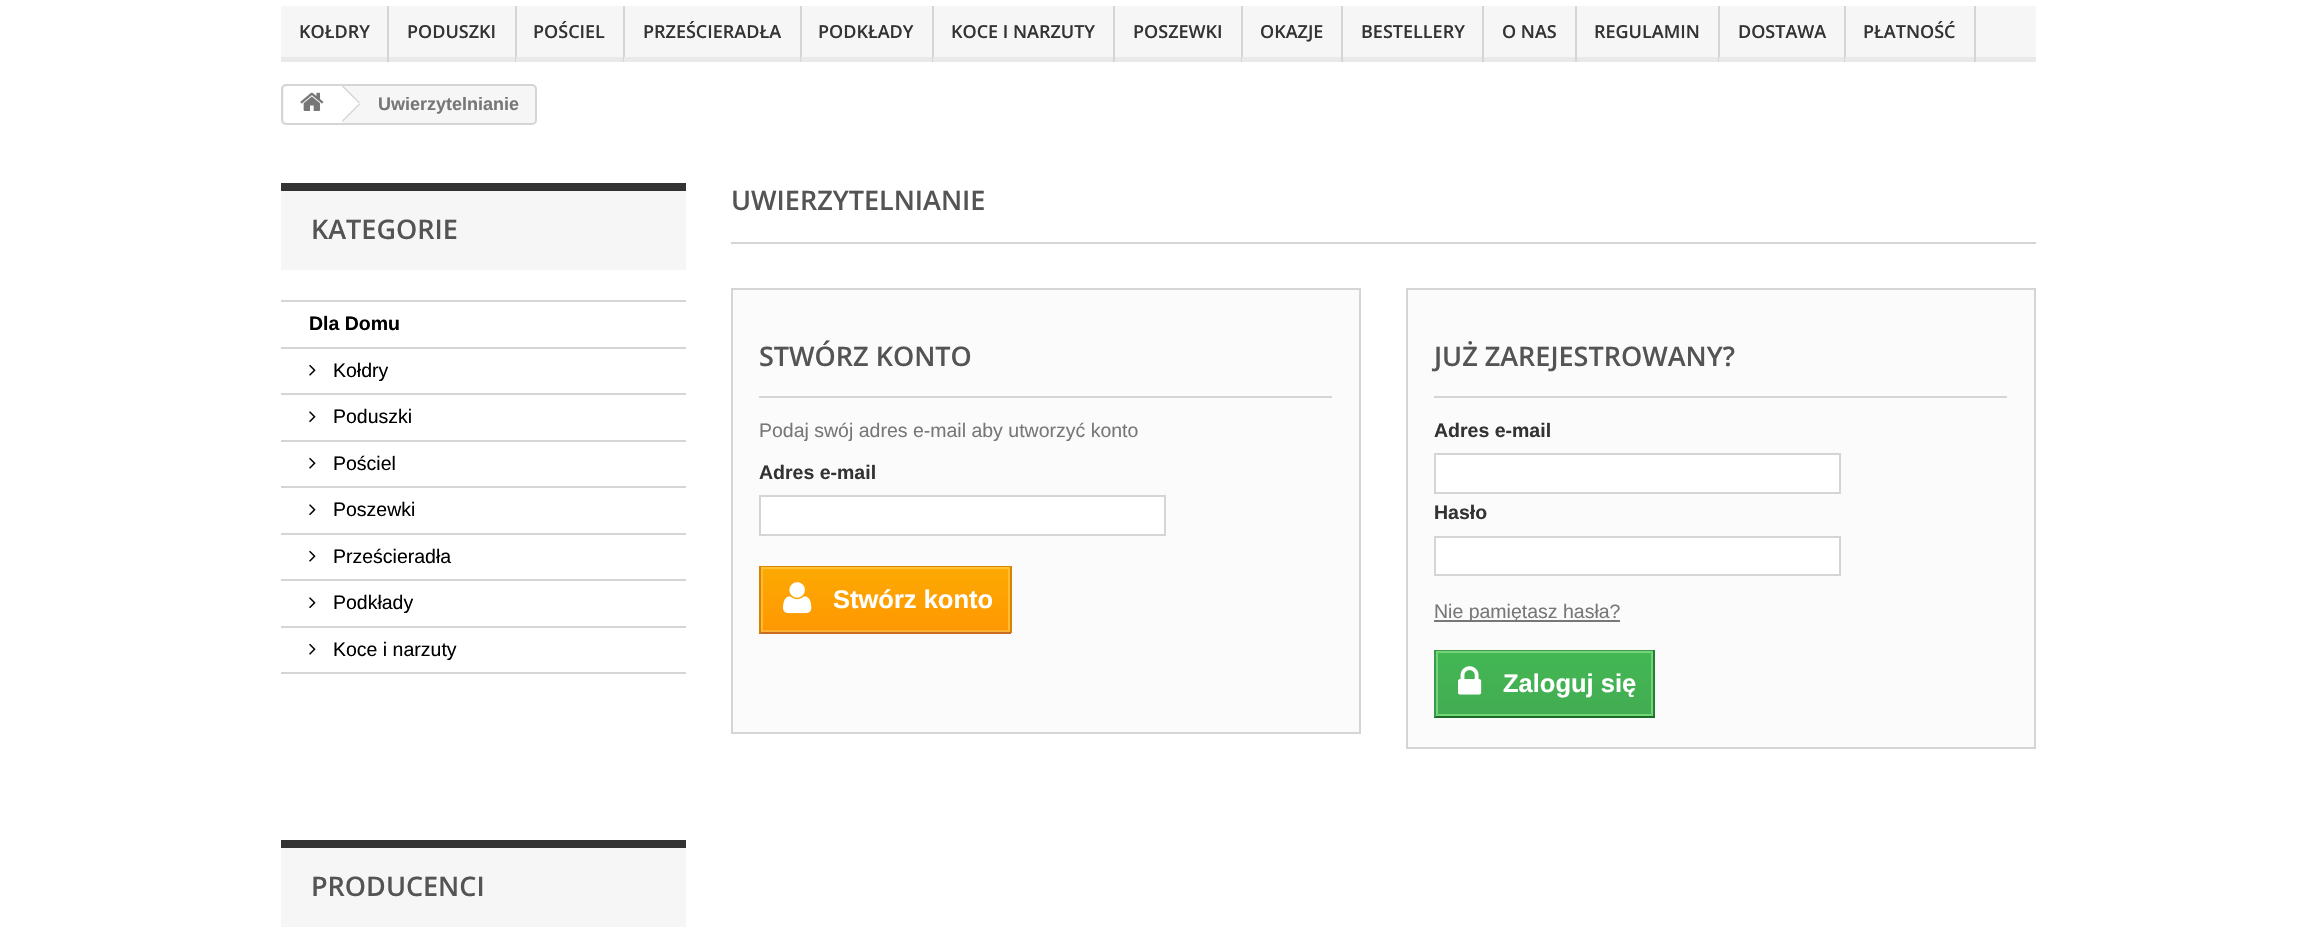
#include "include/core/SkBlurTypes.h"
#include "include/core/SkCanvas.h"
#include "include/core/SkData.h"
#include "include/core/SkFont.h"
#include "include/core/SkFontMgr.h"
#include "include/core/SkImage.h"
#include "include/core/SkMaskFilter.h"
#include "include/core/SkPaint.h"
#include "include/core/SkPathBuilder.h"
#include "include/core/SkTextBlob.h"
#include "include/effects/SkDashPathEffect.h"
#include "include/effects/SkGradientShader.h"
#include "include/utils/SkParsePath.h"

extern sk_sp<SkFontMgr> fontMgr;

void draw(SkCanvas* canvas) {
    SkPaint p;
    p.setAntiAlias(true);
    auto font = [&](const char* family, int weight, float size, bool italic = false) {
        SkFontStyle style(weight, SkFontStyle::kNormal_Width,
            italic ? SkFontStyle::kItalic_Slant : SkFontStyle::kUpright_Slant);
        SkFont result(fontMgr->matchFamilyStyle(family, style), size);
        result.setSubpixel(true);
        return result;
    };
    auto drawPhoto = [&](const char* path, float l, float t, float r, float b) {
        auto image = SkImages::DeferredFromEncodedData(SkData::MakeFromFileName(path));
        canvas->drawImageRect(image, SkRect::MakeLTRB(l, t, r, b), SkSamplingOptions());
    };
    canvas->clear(0xFFFFFFFF);
    {
        const struct { float l, t, r, b; SkColor color; } items[] = {
            {281, 6, 2036, 57, 0xFFF6F6F6},
            {281, 57, 2036, 62, 0xFFE9E9E9},
            {387, 6, 389, 62, 0xFFD6D4D4},
        };
        for (auto [l, t, r, b, color] : items) {
            p.setColor(color);
            canvas->drawRect(SkRect::MakeLTRB(l, t, r, b), p);
        }
    }
    auto font1 = font("Open Sans", 600, 18);
    p.setColor(0xFF333333);
    canvas->drawString("KOŁDRY", 299, 38, font1, p);
    p.setColor(0xFFD6D4D4);
    canvas->drawRect(SkRect::MakeLTRB(515, 6, 517, 62), p);
    p.setColor(0xFF333333);
    canvas->drawString("PODUSZKI", 407, 38, font1, p);
    p.setColor(0xFFD6D4D4);
    canvas->drawRect(SkRect::MakeLTRB(623, 6, 625, 62), p);
    p.setColor(0xFFE9E9E9);
    canvas->drawRect(SkRect::MakeLTRB(516, 57, 517, 62), p);
    p.setColor(0xFF333333);
    canvas->drawString("POŚCIEL", 533, 38, font1, p);
    p.setColor(0xFFD6D4D4);
    canvas->drawRect(SkRect::MakeLTRB(800, 6, 802, 62), p);
    p.setColor(0xFFE9E9E9);
    canvas->drawRect(SkRect::MakeLTRB(624, 57, 625, 62), p);
    p.setColor(0xFF333333);
    canvas->drawString("PRZEŚCIERADŁA", 643, 38, font1, p);
    p.setColor(0xFFD6D4D4);
    canvas->drawRect(SkRect::MakeLTRB(932, 6, 934, 62), p);
    p.setColor(0xFFE9E9E9);
    canvas->drawRect(SkRect::MakeLTRB(801, 57, 802, 62), p);
    p.setColor(0xFF333333);
    canvas->drawString("PODKŁADY", 818, 38, font1, p);
    p.setColor(0xFFD6D4D4);
    canvas->drawRect(SkRect::MakeLTRB(1113, 6, 1115, 62), p);
    p.setColor(0xFFE9E9E9);
    canvas->drawRect(SkRect::MakeLTRB(933, 57, 934, 62), p);
    p.setColor(0xFF333333);
    canvas->drawString("KOCE I NARZUTY", 951, 38, font1, p);
    p.setColor(0xFFD6D4D4);
    canvas->drawRect(SkRect::MakeLTRB(1241, 6, 1243, 62), p);
    p.setColor(0xFF333333);
    canvas->drawString("POSZEWKI", 1133, 38, font1, p);
    p.setColor(0xFFD6D4D4);
    canvas->drawRect(SkRect::MakeLTRB(1341, 6, 1343, 62), p);
    p.setColor(0xFFE9E9E9);
    canvas->drawRect(SkRect::MakeLTRB(1242, 57, 1243, 62), p);
    p.setColor(0xFF333333);
    canvas->drawString("OKAZJE", 1260, 38, font1, p);
    p.setColor(0xFFD6D4D4);
    canvas->drawRect(SkRect::MakeLTRB(1482, 6, 1484, 62), p);
    p.setColor(0xFF333333);
    canvas->drawString("BESTELLERY", 1361, 38, font1, p);
    p.setColor(0xFFD6D4D4);
    canvas->drawRect(SkRect::MakeLTRB(1575, 6, 1577, 62), p);
    p.setColor(0xFF333333);
    canvas->drawString("O NAS", 1502, 38, font1, p);
    p.setColor(0xFFD6D4D4);
    canvas->drawRect(SkRect::MakeLTRB(1718, 6, 1720, 62), p);
    p.setColor(0xFF333333);
    canvas->drawString("REGULAMIN", 1594, 38, font1, p);
    p.setColor(0xFFD6D4D4);
    canvas->drawRect(SkRect::MakeLTRB(1844, 6, 1846, 62), p);
    p.setColor(0xFFE9E9E9);
    canvas->drawRect(SkRect::MakeLTRB(1719, 57, 1720, 62), p);
    p.setColor(0xFF333333);
    canvas->drawString("DOSTAWA", 1738, 38, font1, p);
    p.setColor(0xFFD6D4D4);
    canvas->drawRect(SkRect::MakeLTRB(1974, 6, 1976, 62), p);
    p.setColor(0xFFE9E9E9);
    canvas->drawRect(SkRect::MakeLTRB(1845, 57, 1846, 62), p);
    p.setColor(0xFF333333);
    canvas->drawString("PŁATNOŚĆ", 1863, 38, font1, p);
    p.setColor(0xFFF6F6F6);
    canvas->drawRoundRect(SkRect::MakeLTRB(282, 85, 536, 124), 4, 4, p);
    p.setStyle(SkPaint::kStroke_Style);
    p.setStrokeWidth(2);
    p.setColor(0xFFD6D4D4);
    canvas->drawRoundRect(SkRect::MakeLTRB(282, 85, 536, 124), 4, 4, p);
    p.setStyle(SkPaint::kFill_Style);
    p.setColor(0xFFFFFFFF);
    canvas->drawPath(SkPathBuilder().moveTo(289, 86).lineTo(341, 86).lineTo(341, 123).lineTo(289, 123).cubicTo(286, 123, 284, 121, 284, 118).lineTo(284, 91).cubicTo(284, 88, 286, 86, 289, 86).close().detach(), p);
    drawPhoto("media/1.png", 300, 92, 324, 111);
    canvas->drawPath(SkPathBuilder().moveTo(344, 86.5f).lineTo(343.5f, 86).lineTo(340.5f, 86).lineTo(340, 86.5f).lineTo(325, 101.5f).cubicTo(324, 102.5f, 324, 104.5f, 325, 105.5f).lineTo(340, 120.5f).cubicTo(341, 121.5f, 343, 121.5f, 344, 120.5f).lineTo(359, 105.5f).cubicTo(360, 104.5f, 360, 102.5f, 359, 101.5f).close().detach(), p);
    p.setColor(0xFFD6D4D4);
    canvas->drawPath(SkPathBuilder().moveTo(343, 85.5f).lineTo(360, 102.5f).lineTo(359, 103.5f).lineTo(342, 86.5f).close().detach(), p);
    canvas->drawPath(SkPathBuilder().moveTo(359, 103.5f).lineTo(360, 104.5f).lineTo(343, 121.5f).lineTo(342, 120.5f).close().detach(), p);
    auto font2 = font("Liberation Sans", 700, 18);
    p.setColor(0xFF777777);
    canvas->drawString("Uwierzytelnianie", 378, 110, font2, p);
    p.setColor(0xFFF6F6F6);
    canvas->drawRect(SkRect::MakeLTRB(281, 191, 686, 270), p);
    p.setColor(0xFF333333);
    canvas->drawRect(SkRect::MakeLTRB(281, 183, 686, 191), p);
    auto font3 = font("Open Sans", 600, 27);
    p.setColor(0xFF555454);
    canvas->drawString("KATEGORIE", 311, 239, font3, p);
    p.setColor(0xFFD6D4D4);
    canvas->drawRect(SkRect::MakeLTRB(281, 300, 686, 302), p);
    canvas->drawRect(SkRect::MakeLTRB(281, 347, 686, 349), p);
    auto font4 = font("Liberation Sans", 700, 19.5f);
    p.setColor(0xFF000000);
    canvas->drawString("Dla Domu", 309, 330, font4, p);
    p.setColor(0xFFD6D4D4);
    canvas->drawRect(SkRect::MakeLTRB(281, 393, 686, 395), p);
    drawPhoto("media/2.png", 309, 364, 316, 376);
    auto font5 = font("Liberation Sans", 400, 19.5f);
    p.setColor(0xFF000000);
    canvas->drawString("Kołdry", 333, 377, font5, p);
    p.setColor(0xFFD6D4D4);
    canvas->drawRect(SkRect::MakeLTRB(281, 440, 686, 442), p);
    drawPhoto("media/3.png", 309, 411, 316, 423);
    p.setColor(0xFF000000);
    canvas->drawString("Poduszki", 333, 423, font5, p);
    p.setColor(0xFFD6D4D4);
    canvas->drawRect(SkRect::MakeLTRB(281, 486, 686, 488), p);
    drawPhoto("media/2.png", 309, 457, 316, 469);
    p.setColor(0xFF000000);
    canvas->drawString("Pościel", 333, 470, font5, p);
    p.setColor(0xFFD6D4D4);
    canvas->drawRect(SkRect::MakeLTRB(281, 533, 686, 535), p);
    drawPhoto("media/3.png", 309, 504, 316, 516);
    p.setColor(0xFF000000);
    canvas->drawString("Poszewki", 333, 516, font5, p);
    p.setColor(0xFFD6D4D4);
    canvas->drawRect(SkRect::MakeLTRB(281, 579, 686, 581), p);
    drawPhoto("media/2.png", 309, 550, 316, 562);
    p.setColor(0xFF000000);
    canvas->drawString("Prześcieradła", 333, 563, font5, p);
    p.setColor(0xFFD6D4D4);
    canvas->drawRect(SkRect::MakeLTRB(281, 626, 686, 628), p);
    drawPhoto("media/3.png", 309, 597, 316, 609);
    p.setColor(0xFF000000);
    canvas->drawString("Podkłady", 333, 609, font5, p);
    p.setColor(0xFFD6D4D4);
    canvas->drawRect(SkRect::MakeLTRB(281, 672, 686, 674), p);
    drawPhoto("media/2.png", 309, 643, 316, 655);
    p.setColor(0xFF000000);
    canvas->drawString("Koce i narzuty", 333, 656, font5, p);
    p.setColor(0xFFF6F6F6);
    canvas->drawRect(SkRect::MakeLTRB(281, 848, 686, 927), p);
    p.setColor(0xFF333333);
    canvas->drawRect(SkRect::MakeLTRB(281, 840, 686, 848), p);
    p.setColor(0xFF555454);
    canvas->drawString("PRODUCENCI", 311, 896, font3, p);
    p.setColor(0xFFD6D4D4);
    canvas->drawRect(SkRect::MakeLTRB(731, 242, 2036, 244), p);
    p.setColor(0xFF555454);
    canvas->drawString("UWIERZYTELNIANIE", 731, 210, font3, p);
    p.setColor(0xFFFBFBFB);
    canvas->drawRect(SkRect::MakeLTRB(732, 289, 1360, 733), p);
    p.setStyle(SkPaint::kStroke_Style);
    p.setColor(0xFFD6D4D4);
    canvas->drawRect(SkRect::MakeLTRB(732, 289, 1360, 733), p);
    p.setStyle(SkPaint::kFill_Style);
    canvas->drawRect(SkRect::MakeLTRB(759, 396, 1332, 398), p);
    p.setColor(0xFF555454);
    canvas->drawString("STWÓRZ KONTO", 759, 366, font3, p);
    p.setColor(0xFF777777);
    canvas->drawString("Podaj swój adres e-mail aby utworzyć konto", 759, 437, font5, p);
    p.setColor(0xFF333333);
    canvas->drawString("Adres e-mail", 759, 479, font4, p);
    p.setColor(0xFFFFFFFF);
    canvas->drawRect(SkRect::MakeLTRB(760, 496, 1165, 535), p);
    p.setStyle(SkPaint::kStroke_Style);
    p.setColor(0xFFD6D4D4);
    canvas->drawRect(SkRect::MakeLTRB(760, 496, 1165, 535), p);
    p.setStyle(SkPaint::kFill_Style);
    {
        const SkColor colors[] = {0xFFFDAA02, 0xFFFE9702};
        const float stops[] = {0, 1};
        const SkPoint ends[] = {{885, 567}, {885, 632}};
        p.setShader(SkGradientShader::MakeLinear(ends, colors, stops, 2, SkTileMode::kClamp));
        p.setAlpha(255);
    }
    canvas->drawRect(SkRect::MakeLTRB(763, 569, 1008, 630), p);
    p.setShader(nullptr);
    {
        const struct { float l, t, r, b; SkColor color; } items[] = {
            {759, 566, 1011, 567, 0xFFDB8600},
            {1010, 566, 1012, 633, 0xFFD98305},
            {759, 632, 1011, 634, 0xFFC86D26},
            {759, 566, 761, 633, 0xFFD98305},
            {761, 567, 1010, 569, 0xFFFEC133},
            {1008, 567, 1010, 632, 0xFFFEBC33},
            {761, 630, 1010, 632, 0xFFFEB233},
            {761, 567, 763, 632, 0xFFFEBC33},
        };
        for (auto [l, t, r, b, color] : items) {
            p.setColor(color);
            canvas->drawRect(SkRect::MakeLTRB(l, t, r, b), p);
        }
    }
    drawPhoto("media/4.png", 783, 582, 812, 614);
    auto font6 = font("Liberation Sans", 700, 25.5f);
    p.setColor(0xFFFFFFFF);
    canvas->drawString("Stwórz konto", 833, 608, font6, p);
    p.setColor(0xFFFBFBFB);
    canvas->drawRect(SkRect::MakeLTRB(1407, 289, 2035, 748), p);
    p.setStyle(SkPaint::kStroke_Style);
    p.setColor(0xFFD6D4D4);
    canvas->drawRect(SkRect::MakeLTRB(1407, 289, 2035, 748), p);
    p.setStyle(SkPaint::kFill_Style);
    canvas->drawRect(SkRect::MakeLTRB(1434, 396, 2007, 398), p);
    p.setColor(0xFF555454);
    canvas->drawString("JUŻ ZAREJESTROWANY?", 1434, 366, font3, p);
    p.setColor(0xFF333333);
    canvas->drawString("Adres e-mail", 1434, 437, font4, p);
    p.setColor(0xFFFFFFFF);
    canvas->drawRect(SkRect::MakeLTRB(1435, 454, 1840, 493), p);
    p.setStyle(SkPaint::kStroke_Style);
    p.setColor(0xFFD6D4D4);
    canvas->drawRect(SkRect::MakeLTRB(1435, 454, 1840, 493), p);
    p.setStyle(SkPaint::kFill_Style);
    p.setColor(0xFF333333);
    canvas->drawString("Hasło", 1434, 519, font4, p);
    p.setColor(0xFFFFFFFF);
    canvas->drawRect(SkRect::MakeLTRB(1435, 537, 1840, 575), p);
    p.setStyle(SkPaint::kStroke_Style);
    p.setColor(0xFFD6D4D4);
    canvas->drawRect(SkRect::MakeLTRB(1435, 537, 1840, 575), p);
    p.setStyle(SkPaint::kFill_Style);
    p.setColor(0xFF777777);
    canvas->drawRect(SkRect::MakeLTRB(1434, 620, 1620, 622), p);
    canvas->drawString("Nie pamiętasz hasła?", 1434, 618, font5, p);
    {
        const SkColor colors[] = {0xFF43B754, 0xFF42AC52};
        const float stops[] = {0, 1};
        const SkPoint ends[] = {{1544, 651}, {1544, 716}};
        p.setShader(SkGradientShader::MakeLinear(ends, colors, stops, 2, SkTileMode::kClamp));
        p.setAlpha(255);
    }
    canvas->drawRect(SkRect::MakeLTRB(1438, 653, 1651, 714), p);
    p.setShader(nullptr);
    {
        const struct { float l, t, r, b; SkColor color; } items[] = {
            {1434, 650, 1655, 651, 0xFF399A49},
            {1653, 650, 1655, 717, 0xFF247F32},
            {1434, 716, 1655, 718, 0xFF1A6D27},
            {1434, 650, 1436, 717, 0xFF399A49},
        };
        for (auto [l, t, r, b, color] : items) {
            p.setColor(color);
            canvas->drawRect(SkRect::MakeLTRB(l, t, r, b), p);
        }
    }
    p.setStyle(SkPaint::kStroke_Style);
    p.setColor(0xFF74D578);
    canvas->drawRect(SkRect::MakeLTRB(1437, 652, 1652, 715), p);
    drawPhoto("media/5.png", 1458, 666, 1482, 695);
    p.setStyle(SkPaint::kFill_Style);
    p.setColor(0xFFFFFFFF);
    canvas->drawString("Zaloguj się", 1503, 692, font6, p);
}
